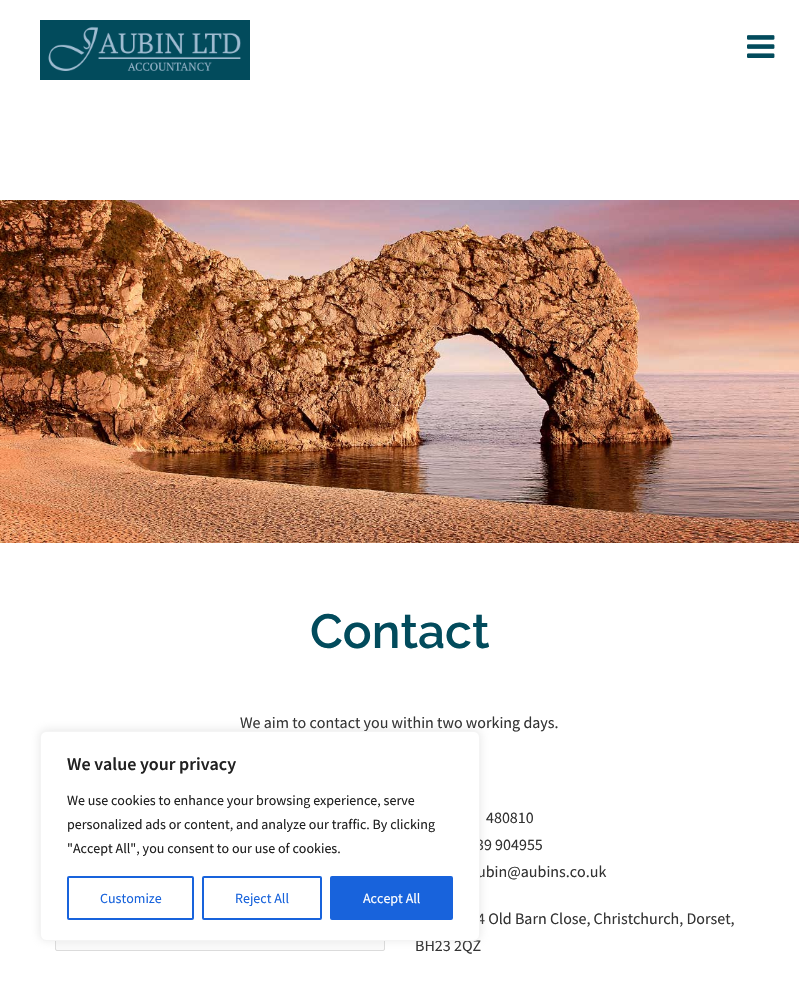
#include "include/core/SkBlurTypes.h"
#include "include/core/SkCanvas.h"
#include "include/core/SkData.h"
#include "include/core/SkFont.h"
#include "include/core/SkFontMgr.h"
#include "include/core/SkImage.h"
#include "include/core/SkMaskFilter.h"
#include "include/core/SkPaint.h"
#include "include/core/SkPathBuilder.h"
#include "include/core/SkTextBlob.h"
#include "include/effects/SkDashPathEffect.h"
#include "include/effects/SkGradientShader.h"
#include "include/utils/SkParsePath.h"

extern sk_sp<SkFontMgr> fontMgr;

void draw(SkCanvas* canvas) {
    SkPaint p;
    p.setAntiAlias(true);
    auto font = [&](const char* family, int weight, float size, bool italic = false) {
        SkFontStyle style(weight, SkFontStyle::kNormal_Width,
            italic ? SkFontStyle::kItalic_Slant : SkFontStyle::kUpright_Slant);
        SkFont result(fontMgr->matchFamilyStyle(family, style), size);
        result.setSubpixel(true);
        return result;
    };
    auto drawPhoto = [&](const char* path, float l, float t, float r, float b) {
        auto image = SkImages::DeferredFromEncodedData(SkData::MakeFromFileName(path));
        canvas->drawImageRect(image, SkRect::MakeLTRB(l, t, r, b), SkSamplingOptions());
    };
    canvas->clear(0xFFFFFFFF);
    drawPhoto("media/1.png", 40, 20, 250, 80);
    drawPhoto("media/2.png", 747, 35, 775, 58);
    drawPhoto("media/3.png", 0, 200, 799, 543);
    auto font1 = font("Raleway", 600, 48);
    p.setColor(0xFF024B5C);
    canvas->drawString("Contact", 310, 648, font1, p);
    auto font2 = font("Source Sans Pro", 400, 16);
    p.setColor(0xFF333333);
    canvas->drawString("We aim to contact you within two working days.", 240, 728, font2, p);
    p.setColor(0xFFFAFAFA);
    canvas->drawRoundRect(SkRect::MakeLTRB(55.5f, 901.5f, 384.5f, 950.5f), 1.5f, 1.5f, p);
    p.setStyle(SkPaint::kStroke_Style);
    p.setStrokeWidth(1);
    p.setColor(0xFFDBDBDB);
    canvas->drawRoundRect(SkRect::MakeLTRB(55.5f, 901.5f, 384.5f, 950.5f), 1.5f, 1.5f, p);
    p.setStyle(SkPaint::kFill_Style);
    p.setColor(0xFF333333);
    {
        const struct { const char* s; float x, y; } items[] = {
            {"480810", 486, 823},
            {"39 904955", 476, 850},
            {"ubin@aubins.co.uk", 477, 877},
            {"4 Old Barn Close, Christchurch, Dorset,", 477, 924},
            {"BH23 2QZ", 415, 951},
        };
        for (auto [s, x, y] : items) {
            canvas->drawString(s, x, y, font2, p);
        }
    }
    p.setColor(0x4DACABAB);
    p.setMaskFilter(SkMaskFilter::MakeBlur(kNormal_SkBlurStyle, 5));
    canvas->drawRoundRect(SkRect::MakeLTRB(40, 730, 480, 940), 6, 6, p);
    p.setMaskFilter(nullptr);
    p.setColor(0xFFFFFFFF);
    canvas->drawRoundRect(SkRect::MakeLTRB(40.5f, 731.5f, 479.5f, 940.5f), 5.5f, 5.5f, p);
    p.setStyle(SkPaint::kStroke_Style);
    p.setColor(0xFFF4F4F4);
    canvas->drawRoundRect(SkRect::MakeLTRB(40.5f, 731.5f, 479.5f, 940.5f), 5.5f, 5.5f, p);
    auto font3 = font("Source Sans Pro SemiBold", 600, 18);
    p.setStyle(SkPaint::kFill_Style);
    p.setColor(0xFF212121);
    canvas->drawString("We value your privacy", 67, 770, font3, p);
    auto font4 = font("Source Sans Pro", 400, 14);
    {
        const struct { const char* s; float x, y; } items[] = {
            {"We use cookies to enhance your browsing experience, serve", 67, 805},
            {"personalized ads or content, and analyze our traffic. By clicking", 67, 829},
            {"\"Accept All\", you consent to our use of cookies.", 67, 853},
        };
        for (auto [s, x, y] : items) {
            canvas->drawString(s, x, y, font4, p);
        }
    }
    p.setStyle(SkPaint::kStroke_Style);
    p.setStrokeWidth(2);
    p.setColor(0xFF1863DC);
    canvas->drawRoundRect(SkRect::MakeLTRB(68, 877, 193, 919), 1, 1, p);
    p.setStyle(SkPaint::kFill_Style);
    canvas->drawString("Customize", 100, 903, font4, p);
    p.setStyle(SkPaint::kStroke_Style);
    canvas->drawRoundRect(SkRect::MakeLTRB(203, 877, 321, 919), 1, 1, p);
    p.setStyle(SkPaint::kFill_Style);
    canvas->drawString("Reject All", 235, 903, font4, p);
    canvas->drawRoundRect(SkRect::MakeLTRB(331, 877, 452, 919), 1, 1, p);
    p.setStyle(SkPaint::kStroke_Style);
    canvas->drawRoundRect(SkRect::MakeLTRB(331, 877, 452, 919), 1, 1, p);
    p.setStyle(SkPaint::kFill_Style);
    p.setColor(0xFFFFFFFF);
    canvas->drawString("Accept All", 363, 903, font4, p);
}
